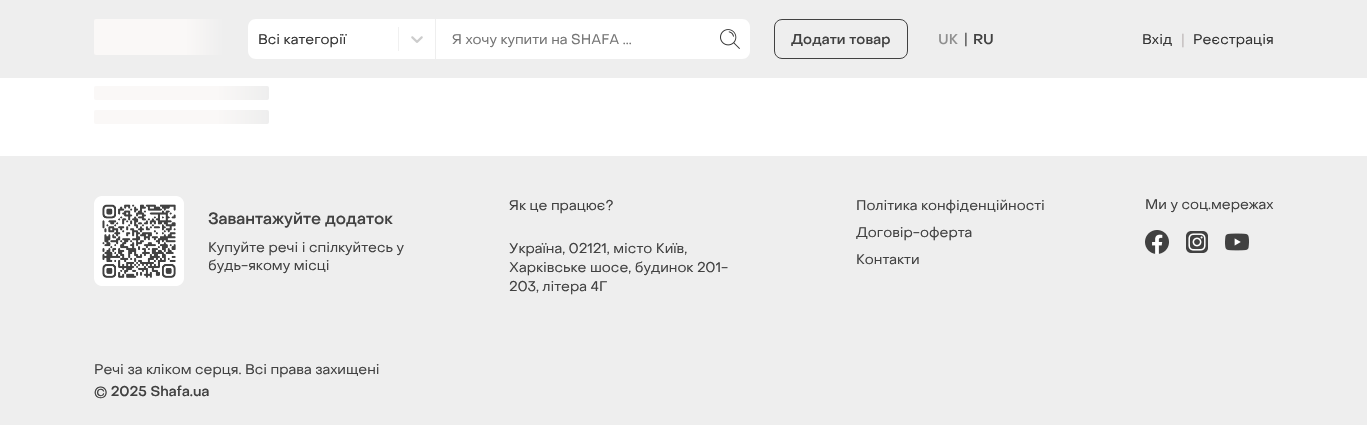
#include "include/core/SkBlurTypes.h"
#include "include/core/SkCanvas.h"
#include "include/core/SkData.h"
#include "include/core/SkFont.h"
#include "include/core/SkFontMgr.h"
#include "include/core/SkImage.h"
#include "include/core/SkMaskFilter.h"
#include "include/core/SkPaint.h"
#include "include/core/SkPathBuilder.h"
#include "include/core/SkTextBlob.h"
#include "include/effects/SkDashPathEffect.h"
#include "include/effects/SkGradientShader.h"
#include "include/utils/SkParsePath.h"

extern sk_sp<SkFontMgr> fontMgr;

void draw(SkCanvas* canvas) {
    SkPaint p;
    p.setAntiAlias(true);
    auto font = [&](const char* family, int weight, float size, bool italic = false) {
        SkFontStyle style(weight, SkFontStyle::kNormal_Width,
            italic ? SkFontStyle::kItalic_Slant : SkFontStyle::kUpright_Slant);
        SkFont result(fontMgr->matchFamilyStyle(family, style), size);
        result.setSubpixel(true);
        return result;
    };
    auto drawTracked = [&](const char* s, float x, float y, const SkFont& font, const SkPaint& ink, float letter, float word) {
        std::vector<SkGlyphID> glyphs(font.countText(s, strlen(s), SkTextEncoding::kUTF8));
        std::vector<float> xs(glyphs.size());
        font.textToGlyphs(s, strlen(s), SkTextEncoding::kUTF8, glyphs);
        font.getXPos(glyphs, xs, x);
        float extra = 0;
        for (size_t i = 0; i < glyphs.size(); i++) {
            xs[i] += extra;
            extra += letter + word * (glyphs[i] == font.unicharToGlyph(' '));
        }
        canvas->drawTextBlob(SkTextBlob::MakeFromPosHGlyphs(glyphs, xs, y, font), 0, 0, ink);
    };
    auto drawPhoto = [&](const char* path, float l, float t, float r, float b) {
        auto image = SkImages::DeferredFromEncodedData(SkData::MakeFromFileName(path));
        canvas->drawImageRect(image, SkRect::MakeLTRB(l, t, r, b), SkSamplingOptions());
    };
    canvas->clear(0xFFFFFFFF);
    p.setColor(0xFFEEEEEE);
    canvas->drawRect(SkRect::MakeLTRB(0, 0, 1367, 78), p);
    {
        const SkColor colors[] = {0xFFFAF8F7, 0xFFFAF8F7, 0xFFEEEEEE, 0xFFFAF8F7, 0xFFFAF8F7};
        const float stops[] = {0, 0.35f, 0.5f, 0.65f, 1};
        const SkPoint ends[] = {{94, 37}, {354, 37}};
        p.setShader(SkGradientShader::MakeLinear(ends, colors, stops, 5, SkTileMode::kClamp));
        p.setAlpha(255);
    }
    canvas->drawRoundRect(SkRect::MakeLTRB(94, 19, 224, 55), 2, 2, p);
    p.setShader(nullptr);
    p.setColor(0xFFFFFFFF);
    canvas->drawPath(SkPathBuilder().moveTo(256, 19).lineTo(436, 19).lineTo(436, 59).lineTo(256, 59).cubicTo(251.5f, 59, 248, 55.5f, 248, 51).lineTo(248, 27).cubicTo(248, 22.5f, 251.5f, 19, 256, 19).close().detach(), p);
    p.setColor(0xFFEEEEEE);
    canvas->drawRect(SkRect::MakeLTRB(435, 19, 436, 59), p);
    auto font1 = font("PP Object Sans", 400, 14);
    p.setColor(0xFF333333);
    canvas->drawString("Всі категорії", 258, 44, font1, p);
    p.setColor(0xFFF0F0F0);
    canvas->drawRect(SkRect::MakeLTRB(398, 27, 399, 51), p);
    drawPhoto("media/1.png", 411, 36, 423, 43);
    p.setColor(0xFFFFFFFF);
    canvas->drawPath(SkPathBuilder().moveTo(436, 19).lineTo(742, 19).cubicTo(746.5f, 19, 750, 22.5f, 750, 27).lineTo(750, 51).cubicTo(750, 55.5f, 746.5f, 59, 742, 59).lineTo(436, 59).close().detach(), p);
    p.setColor(0xFF757575);
    canvas->drawString("Я хочу купити на SHAFA ...", 452, 44, font1, p);
    drawPhoto("media/2.png", 720, 29, 740, 49);
    p.setStyle(SkPaint::kStroke_Style);
    p.setStrokeWidth(1);
    p.setColor(0xFF414141);
    canvas->drawRoundRect(SkRect::MakeLTRB(774.5f, 19.5f, 907.5f, 58.5f), 7.5f, 7.5f, p);
    auto font2 = font("PP Object Sans", 500, 14);
    p.setStyle(SkPaint::kFill_Style);
    drawTracked("Додати товар", 791, 44, font2, p, 0.1f, 0);
    drawPhoto("media/3.png", 939, 34, 958, 45);
    canvas->drawString("|", 964, 43, font1, p);
    canvas->drawString("RU", 973, 44, font2, p);
    p.setColor(0xFF333333);
    drawTracked("Вхід", 1142, 44, font1, p, 0.1f, 0);
    p.setColor(0xFFBEB8B8);
    canvas->drawString("|", 1181, 44, font1, p);
    p.setColor(0xFF333333);
    drawTracked("Реєстрація", 1193, 44, font1, p, 0.1f, 0);
    {
        const SkColor colors[] = {0xFFFAF8F7, 0xFFFAF8F7, 0xFFEEEEEE, 0xFFFAF8F7, 0xFFFAF8F7};
        const float stops[] = {0, 0.35f, 0.5f, 0.65f, 1};
        const SkPoint ends[] = {{94, 93}, {444, 93}};
        p.setShader(SkGradientShader::MakeLinear(ends, colors, stops, 5, SkTileMode::kClamp));
        p.setAlpha(255);
    }
    canvas->drawRoundRect(SkRect::MakeLTRB(94, 86, 269, 100), 2, 2, p);
    {
        const SkColor colors[] = {0xFFFAF8F7, 0xFFFAF8F7, 0xFFEEEEEE, 0xFFFAF8F7, 0xFFFAF8F7};
        const float stops[] = {0, 0.35f, 0.5f, 0.65f, 1};
        const SkPoint ends[] = {{94, 117}, {444, 117}};
        p.setShader(SkGradientShader::MakeLinear(ends, colors, stops, 5, SkTileMode::kClamp));
        p.setAlpha(255);
    }
    canvas->drawRoundRect(SkRect::MakeLTRB(94, 110, 269, 124), 2, 2, p);
    p.setShader(nullptr);
    p.setColor(0xFFEEEEEE);
    canvas->drawRect(SkRect::MakeLTRB(0, 156, 1367, 425), p);
    p.setColor(0xFF414141);
    {
        const struct { const char* s; float x, y; } items[] = {
            {"Як це працює?", 509, 210},
            {"Україна, 02121, місто Київ,", 509, 253},
            {"Харківське шосе, будинок 201-", 509, 272},
            {"203, літера 4Г", 509, 291},
            {"Політика конфіденційності", 856, 210},
            {"Договір-оферта", 856, 237},
            {"Контакти", 856, 264},
            {"Ми у соц.мережах", 1145, 209},
        };
        for (auto [s, x, y] : items) {
            canvas->drawString(s, x, y, font1, p);
        }
    }
    drawPhoto("media/4.png", 1145, 230, 1169, 254);
    drawPhoto("media/5.png", 1186, 231, 1208, 253);
    drawPhoto("media/6.png", 1225, 233, 1249, 251);
    drawPhoto("media/7.png", 94, 196, 184, 286);
    auto font3 = font("PP Object Sans", 500, 16);
    canvas->drawString("Завантажуйте додаток", 208, 224, font3, p);
    {
        const struct { const char* s; float x, y; } items[] = {
            {"Купуйте речі і спілкуйтесь у", 208, 252},
            {"будь-якому місці", 208, 270},
            {"Речі за кліком серця. Всі права захищені", 94, 374},
        };
        for (auto [s, x, y] : items) {
            canvas->drawString(s, x, y, font1, p);
        }
    }
    canvas->drawString("© 2025 Shafa.ua", 94, 396, font2, p);
}
